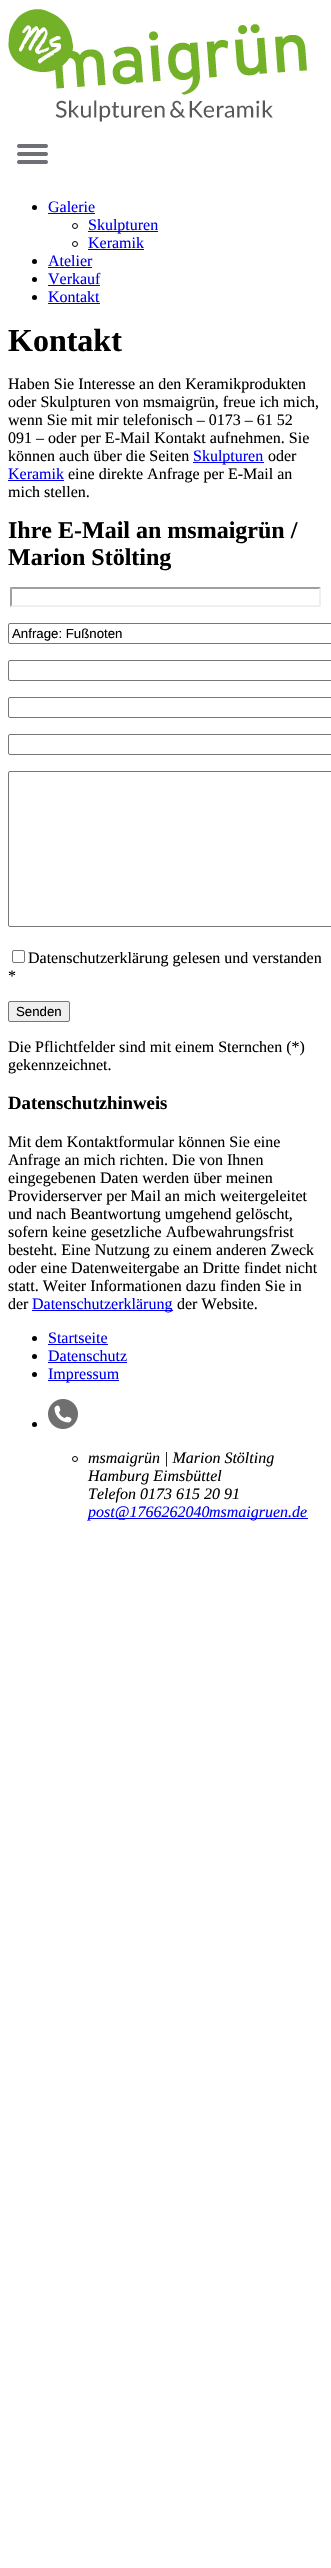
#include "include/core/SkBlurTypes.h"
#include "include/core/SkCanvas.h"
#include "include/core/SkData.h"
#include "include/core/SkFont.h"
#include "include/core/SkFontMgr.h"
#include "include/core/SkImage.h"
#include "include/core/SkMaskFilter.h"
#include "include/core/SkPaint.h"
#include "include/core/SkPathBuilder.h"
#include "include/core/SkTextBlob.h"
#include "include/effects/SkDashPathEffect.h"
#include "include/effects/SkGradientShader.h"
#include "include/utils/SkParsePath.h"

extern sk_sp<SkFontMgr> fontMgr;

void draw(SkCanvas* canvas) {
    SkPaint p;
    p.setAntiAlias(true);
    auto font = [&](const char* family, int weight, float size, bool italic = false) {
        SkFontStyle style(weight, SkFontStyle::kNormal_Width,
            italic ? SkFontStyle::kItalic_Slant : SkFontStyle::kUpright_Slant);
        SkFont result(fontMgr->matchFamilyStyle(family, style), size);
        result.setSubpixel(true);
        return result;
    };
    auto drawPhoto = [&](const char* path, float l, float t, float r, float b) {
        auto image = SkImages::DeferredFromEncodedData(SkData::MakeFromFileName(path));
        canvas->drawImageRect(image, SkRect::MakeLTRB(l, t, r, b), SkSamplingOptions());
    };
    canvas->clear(0xFFFFFFFF);
    drawPhoto("media/1.png", 8, 9, 307, 122);
    drawPhoto("media/2.png", 17, 144, 48, 164);
    p.setColor(0xFF000000);
    canvas->drawCircle(34.5f, 207.5f, 2.5f, p);
    auto font1 = font("Liberation Serif", 400, 16);
    p.setColor(0xFF0000EE);
    canvas->drawString("Galerie", 48, 212, font1, p);
    canvas->drawRect(SkRect::MakeLTRB(48, 213, 95, 214), p);
    p.setStyle(SkPaint::kStroke_Style);
    p.setStrokeWidth(1);
    p.setColor(0xFF000000);
    canvas->drawCircle(75, 226, 2.5f, p);
    p.setStyle(SkPaint::kFill_Style);
    p.setColor(0xFF0000EE);
    canvas->drawRect(SkRect::MakeLTRB(88, 231, 158, 232), p);
    canvas->drawString("Skulpturen", 88, 230, font1, p);
    p.setStyle(SkPaint::kStroke_Style);
    p.setColor(0xFF000000);
    canvas->drawCircle(75, 244, 2.5f, p);
    p.setStyle(SkPaint::kFill_Style);
    p.setColor(0xFF0000EE);
    canvas->drawString("Keramik", 88, 248, font1, p);
    canvas->drawRect(SkRect::MakeLTRB(88, 249, 144, 250), p);
    p.setColor(0xFF000000);
    canvas->drawCircle(34.5f, 261.5f, 2.5f, p);
    p.setColor(0xFF0000EE);
    canvas->drawString("Atelier", 48, 266, font1, p);
    canvas->drawRect(SkRect::MakeLTRB(48, 267, 92, 268), p);
    p.setColor(0xFF000000);
    canvas->drawCircle(34.5f, 279.5f, 2.5f, p);
    p.setColor(0xFF0000EE);
    canvas->drawString("Verkauf", 48, 284, font1, p);
    canvas->drawRect(SkRect::MakeLTRB(48, 285, 100, 286), p);
    p.setColor(0xFF000000);
    canvas->drawCircle(34.5f, 297.5f, 2.5f, p);
    p.setColor(0xFF0000EE);
    canvas->drawString("Kontakt", 48, 302, font1, p);
    canvas->drawRect(SkRect::MakeLTRB(48, 303, 100, 304), p);
    auto font2 = font("Liberation Serif", 700, 32);
    p.setColor(0xFF000000);
    canvas->drawString("Kontakt", 8, 351, font2, p);
    {
        const struct { const char* s; float x, y; } items[] = {
            {"Haben Sie Interesse an den Keramikprodukten", 8, 389},
            {"oder Skulpturen von msmaigrün, freue ich mich,", 8, 407},
            {"wenn Sie mit mir telefonisch – 0173 – 61 52", 8, 425},
            {"091 – oder per E-Mail Kontakt aufnehmen. Sie", 8, 443},
            {"können auch über die Seiten", 8, 461},
        };
        for (auto [s, x, y] : items) {
            canvas->drawString(s, x, y, font1, p);
        }
    }
    p.setColor(0xFF0000EE);
    canvas->drawRect(SkRect::MakeLTRB(193, 462, 264, 463), p);
    canvas->drawString("Skulpturen", 193, 461, font1, p);
    p.setColor(0xFF000000);
    canvas->drawString("oder", 268, 461, font1, p);
    p.setColor(0xFF0000EE);
    canvas->drawString("Keramik", 8, 479, font1, p);
    canvas->drawRect(SkRect::MakeLTRB(8, 480, 64, 481), p);
    p.setColor(0xFF000000);
    canvas->drawString("eine direkte Anfrage per E-Mail an", 68, 479, font1, p);
    canvas->drawString("mich stellen.", 8, 497, font1, p);
    auto font3 = font("Liberation Serif", 700, 24);
    canvas->drawString("Ihre E-Mail an msmaigrün /", 8, 538, font3, p);
    canvas->drawString("Marion Stölting", 8, 565, font3, p);
    p.setColor(0xFF9F9F9F);
    canvas->drawPath(SkPathBuilder().moveTo(10, 587).lineTo(321, 587).lineTo(319, 589).lineTo(12, 589).close().detach(), p);
    p.setColor(0xFFEFEFEF);
    canvas->drawPath(SkPathBuilder().moveTo(321, 587).lineTo(321, 607).lineTo(319, 605).lineTo(319, 589).close().detach(), p);
    canvas->drawPath(SkPathBuilder().moveTo(321, 607).lineTo(10, 607).lineTo(12, 605).lineTo(319, 605).close().detach(), p);
    p.setColor(0xFF9F9F9F);
    canvas->drawPath(SkPathBuilder().moveTo(10, 607).lineTo(10, 587).lineTo(12, 589).lineTo(12, 605).close().detach(), p);
    p.setStyle(SkPaint::kStroke_Style);
    p.setColor(0xFF767676);
    canvas->drawRoundRect(SkRect::MakeLTRB(8.5f, 623.5f, 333.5f, 643.5f), 1.5f, 1.5f, p);
    auto font4 = font("Liberation Sans", 400, 13.25f);
    p.setStyle(SkPaint::kFill_Style);
    p.setColor(0xFF000000);
    canvas->drawString("Anfrage: Fußnoten", 12, 638, font4, p);
    p.setStyle(SkPaint::kStroke_Style);
    p.setColor(0xFF767676);
    canvas->drawRoundRect(SkRect::MakeLTRB(8.5f, 660.5f, 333.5f, 680.5f), 1.5f, 1.5f, p);
    canvas->drawRoundRect(SkRect::MakeLTRB(8.5f, 697.5f, 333.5f, 717.5f), 1.5f, 1.5f, p);
    canvas->drawRoundRect(SkRect::MakeLTRB(8.5f, 734.5f, 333.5f, 754.5f), 1.5f, 1.5f, p);
    canvas->drawRoundRect(SkRect::MakeLTRB(8.5f, 771.5f, 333.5f, 926.5f), 1.5f, 1.5f, p);
    canvas->drawRoundRect(SkRect::MakeLTRB(12.5f, 950.5f, 24.5f, 962.5f), 1.5f, 1.5f, p);
    p.setStyle(SkPaint::kFill_Style);
    p.setColor(0xFF000000);
    canvas->drawString("Datenschutzerklärung gelesen und verstanden", 28, 963, font1, p);
    canvas->drawString("*", 8, 981, font1, p);
    p.setColor(0xFFEFEFEF);
    canvas->drawRoundRect(SkRect::MakeLTRB(8.5f, 1001.5f, 69.5f, 1021.5f), 1.5f, 1.5f, p);
    p.setStyle(SkPaint::kStroke_Style);
    p.setColor(0xFF767676);
    canvas->drawRoundRect(SkRect::MakeLTRB(8.5f, 1001.5f, 69.5f, 1021.5f), 1.5f, 1.5f, p);
    p.setStyle(SkPaint::kFill_Style);
    p.setColor(0xFF000000);
    canvas->drawString("Senden", 16, 1016, font4, p);
    canvas->drawString("Die Pflichtfelder sind mit einem Sternchen (*)", 8, 1052, font1, p);
    canvas->drawString("gekennzeichnet.", 8, 1070, font1, p);
    auto font5 = font("Liberation Serif", 700, 18.75f);
    canvas->drawString("Datenschutzhinweis", 8, 1109, font5, p);
    {
        const struct { const char* s; float x, y; } items[] = {
            {"Mit dem Kontaktformular können Sie eine", 8, 1147},
            {"Anfrage an mich richten. Die von Ihnen", 8, 1165},
            {"eingegebenen Daten werden über meinen", 8, 1183},
            {"Providerserver per Mail an mich weitergeleitet", 8, 1201},
            {"und nach Beantwortung umgehend gelöscht,", 8, 1219},
            {"sofern keine gesetzliche Aufbewahrungsfrist", 8, 1237},
            {"besteht. Eine Nutzung zu einem anderen Zweck", 8, 1255},
            {"oder eine Datenweitergabe an Dritte findet nicht", 8, 1273},
            {"statt. Weiter Informationen dazu finden Sie in", 8, 1291},
            {"der", 8, 1309},
        };
        for (auto [s, x, y] : items) {
            canvas->drawString(s, x, y, font1, p);
        }
    }
    p.setColor(0xFF0000EE);
    canvas->drawRect(SkRect::MakeLTRB(32, 1310, 173, 1311), p);
    canvas->drawString("Datenschutzerklärung", 32, 1309, font1, p);
    p.setColor(0xFF000000);
    canvas->drawString("der Website.", 177, 1309, font1, p);
    canvas->drawCircle(34.5f, 1338.5f, 2.5f, p);
    p.setColor(0xFF0000EE);
    canvas->drawString("Startseite", 48, 1343, font1, p);
    canvas->drawRect(SkRect::MakeLTRB(48, 1344, 108, 1345), p);
    p.setColor(0xFF000000);
    canvas->drawCircle(34.5f, 1356.5f, 2.5f, p);
    p.setColor(0xFF0000EE);
    canvas->drawString("Datenschutz", 48, 1361, font1, p);
    canvas->drawRect(SkRect::MakeLTRB(48, 1362, 127, 1363), p);
    p.setColor(0xFF000000);
    canvas->drawCircle(34.5f, 1374.5f, 2.5f, p);
    p.setColor(0xFF0000EE);
    canvas->drawRect(SkRect::MakeLTRB(48, 1380, 119, 1381), p);
    canvas->drawString("Impressum", 48, 1379, font1, p);
    p.setColor(0xFF000000);
    canvas->drawCircle(34.5f, 1424.5f, 2.5f, p);
    drawPhoto("media/3.png", 48, 1399, 78, 1429);
    p.setStyle(SkPaint::kStroke_Style);
    canvas->drawCircle(75, 1459, 2.5f, p);
    auto font6 = font("Liberation Serif", 400, 16, true);
    p.setStyle(SkPaint::kFill_Style);
    {
        const struct { const char* s; float x, y; } items[] = {
            {"msmaigrün | Marion Stölting", 88, 1463},
            {"Hamburg Eimsbüttel", 88, 1481},
            {"Telefon 0173 615 20 91", 88, 1499},
        };
        for (auto [s, x, y] : items) {
            canvas->drawString(s, x, y, font6, p);
        }
    }
    p.setColor(0xFF0000EE);
    canvas->drawRect(SkRect::MakeLTRB(88, 1518, 209, 1519), p);
    canvas->drawString("post@1766262040", 88, 1517, font6, p);
    canvas->drawRect(SkRect::MakeLTRB(209, 1518, 308, 1519), p);
    canvas->drawString("msmaigruen.de", 209, 1517, font6, p);
}
